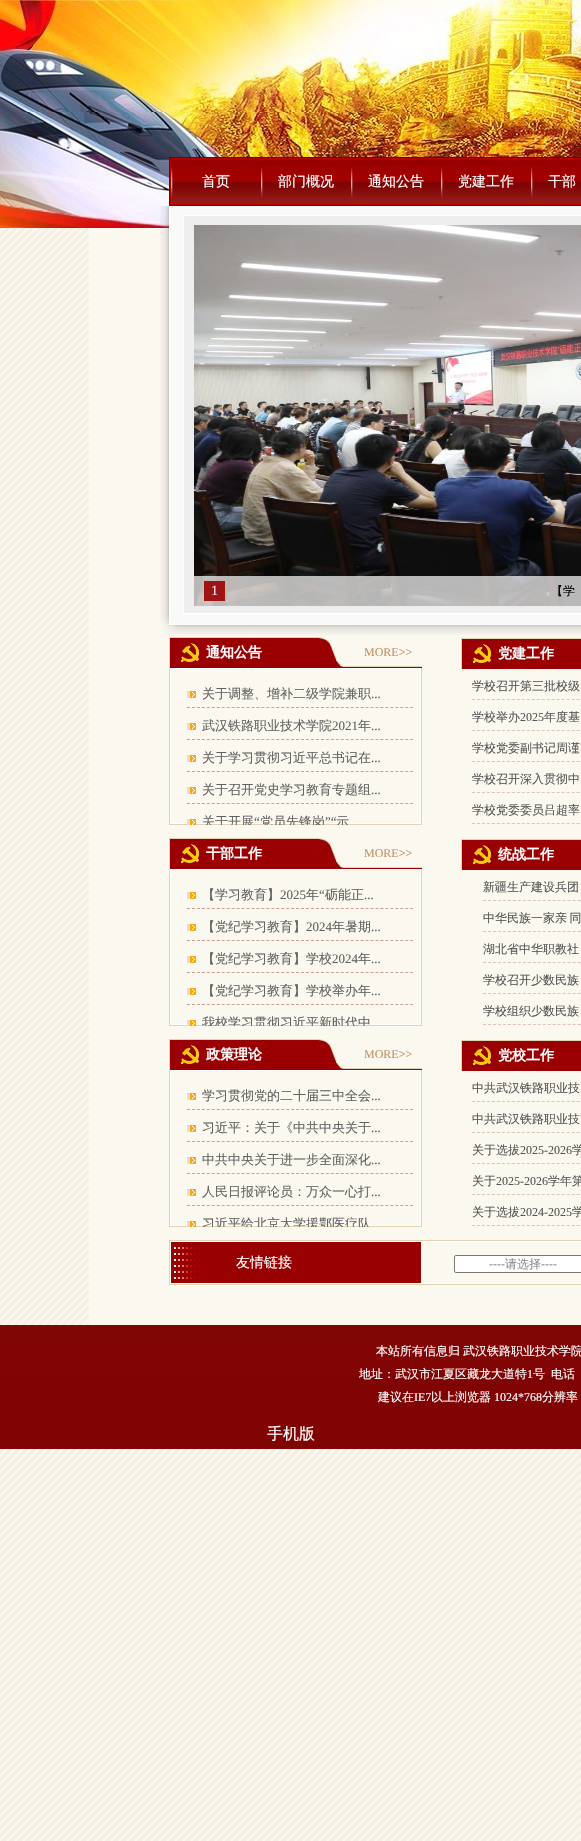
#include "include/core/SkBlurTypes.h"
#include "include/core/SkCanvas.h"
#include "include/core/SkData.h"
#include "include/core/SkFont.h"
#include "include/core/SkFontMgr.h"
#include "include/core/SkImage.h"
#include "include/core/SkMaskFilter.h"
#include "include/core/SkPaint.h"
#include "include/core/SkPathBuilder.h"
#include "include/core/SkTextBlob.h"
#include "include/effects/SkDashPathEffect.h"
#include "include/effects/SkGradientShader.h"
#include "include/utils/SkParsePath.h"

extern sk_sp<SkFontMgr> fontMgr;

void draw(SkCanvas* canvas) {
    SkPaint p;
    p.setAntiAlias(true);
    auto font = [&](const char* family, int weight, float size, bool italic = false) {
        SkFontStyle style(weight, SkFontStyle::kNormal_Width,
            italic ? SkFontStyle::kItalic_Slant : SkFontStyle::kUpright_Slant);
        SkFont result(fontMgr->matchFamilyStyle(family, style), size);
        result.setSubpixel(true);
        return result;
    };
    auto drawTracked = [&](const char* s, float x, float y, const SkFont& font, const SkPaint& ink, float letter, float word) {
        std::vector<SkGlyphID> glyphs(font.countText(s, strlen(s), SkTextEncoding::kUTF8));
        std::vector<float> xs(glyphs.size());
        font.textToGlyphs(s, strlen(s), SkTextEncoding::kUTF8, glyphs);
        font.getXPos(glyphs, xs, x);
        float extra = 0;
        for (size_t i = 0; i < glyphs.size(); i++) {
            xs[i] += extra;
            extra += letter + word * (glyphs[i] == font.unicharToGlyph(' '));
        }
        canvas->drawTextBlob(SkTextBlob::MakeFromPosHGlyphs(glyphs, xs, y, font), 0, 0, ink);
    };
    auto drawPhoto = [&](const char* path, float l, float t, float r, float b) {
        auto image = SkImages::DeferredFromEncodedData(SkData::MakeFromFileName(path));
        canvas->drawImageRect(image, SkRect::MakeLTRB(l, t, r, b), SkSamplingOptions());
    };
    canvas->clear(0xFFFFFFFF);
    drawPhoto("media/1.png", 0, 228, 581, 1841);
    drawPhoto("media/2.png", 0, 0, 581, 228);
    p.setColor(0xFFFBF8F0);
    canvas->drawRect(SkRect::MakeLTRB(89, 228, 581, 1325), p);
    p.setStyle(SkPaint::kStroke_Style);
    p.setStrokeWidth(1);
    p.setColor(0xFF780000);
    canvas->drawRect(SkRect::MakeLTRB(169.5f, 157.5f, 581.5f, 205.5f), p);
    drawPhoto("media/3.png", 171, 159, 581, 204);
    p.setColor(0xFFB70000);
    canvas->drawRect(SkRect::MakeLTRB(170.5f, 158.5f, 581.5f, 204.5f), p);
    drawPhoto("media/4.png", 171, 167, 173, 198);
    auto font1 = font("WenQuanYi Zen Hei", 500, 14);
    p.setStyle(SkPaint::kFill_Style);
    p.setColor(0xFFFFFFFF);
    canvas->drawString("首页", 202, 186, font1, p);
    drawPhoto("media/4.png", 261, 167, 263, 198);
    canvas->drawString("部门概况", 278, 186, font1, p);
    drawPhoto("media/4.png", 351, 167, 353, 198);
    canvas->drawString("通知公告", 368, 186, font1, p);
    drawPhoto("media/4.png", 441, 167, 443, 198);
    canvas->drawString("党建工作", 458, 186, font1, p);
    drawPhoto("media/4.png", 531, 167, 533, 198);
    canvas->drawString("干部", 548, 186, font1, p);
    drawPhoto("media/5.png", 160, 591, 169, 625);
    drawPhoto("media/6.png", 160, 206, 169, 591);
    {
        const struct { float l, t, r, b; SkColor color; } items[] = {
            {170, 206, 581, 624, 0xFFF9F9F9},
            {169, 624, 581, 625, 0xFFFEFDFD},
            {169, 206, 170, 625, 0xFFFEFDFD},
        };
        for (auto [l, t, r, b, color] : items) {
            p.setColor(color);
            canvas->drawRect(SkRect::MakeLTRB(l, t, r, b), p);
        }
    }
    p.setColor(0xFFEEEEEE);
    canvas->drawRect(SkRect::MakeLTRB(183.5f, 215.5f, 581.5f, 613.5f), p);
    p.setStyle(SkPaint::kStroke_Style);
    p.setColor(0xFFFFFFFF);
    canvas->drawRect(SkRect::MakeLTRB(183.5f, 215.5f, 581.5f, 613.5f), p);
    drawPhoto("media/7.png", 194, 225, 581, 606);
    p.setStyle(SkPaint::kFill_Style);
    p.setColor(0xB3FFFFFF);
    canvas->drawRect(SkRect::MakeLTRB(194, 576, 581, 606), p);
    p.setColor(0xE69A0002);
    canvas->drawRect(SkRect::MakeLTRB(204, 581, 225, 601), p);
    auto font2 = font("Liberation Serif", 400, 14);
    p.setColor(0xFFF5E7E8);
    canvas->drawString("1", 211, 595, font2, p);
    auto font3 = font("WenQuanYi Zen Hei", 500, 12);
    p.setColor(0xFF000000);
    canvas->drawString("【学", 551, 595, font3, p);
    drawPhoto("media/8.png", 163, 625, 581, 635);
    drawPhoto("media/9.png", 169, 637, 422, 668);
    auto font4 = font("WenQuanYi Zen Hei", 700, 14);
    p.setColor(0xFFFFFFFF);
    canvas->drawString("通知公告", 206, 657, font4, p);
    auto font5 = font("Liberation Serif", 400, 12);
    p.setColor(0xFFC19265);
    canvas->drawString("MORE>>", 364, 656, font5, p);
    {
        const struct { float l, t, r, b; SkColor color; } items[] = {
            {421, 668, 422, 825, 0xFFE0D4B5},
            {169, 824, 422, 825, 0xFFE0D4B5},
            {169, 668, 170, 825, 0xFFE0D4B5},
        };
        for (auto [l, t, r, b, color] : items) {
            p.setColor(color);
            canvas->drawRect(SkRect::MakeLTRB(l, t, r, b), p);
        }
    }
    p.setStyle(SkPaint::kStroke_Style);
    p.setColor(0xFFFFFFFF);
    canvas->drawRect(SkRect::MakeLTRB(170.5f, 668.5f, 420.5f, 823.5f), p);
    p.setColor(0xFFCD9E99);
    p.setPathEffect(SkDashPathEffect::Make({{3, 1.96f}}, 0));
    canvas->drawPath(SkPathBuilder().moveTo(187, 707.5f).lineTo(413, 707.5f).detach(), p);
    p.setPathEffect(nullptr);
    drawPhoto("media/10.png", 187, 691, 196, 698);
    auto font6 = font("WenQuanYi Zen Hei", 500, 13);
    p.setStyle(SkPaint::kFill_Style);
    p.setColor(0xFF616161);
    canvas->drawString("关于调整、增补二级学院兼职", 202, 698, font6, p);
    auto font7 = font("Liberation Serif", 400, 13);
    canvas->drawString("...", 371, 698, font7, p);
    p.setStyle(SkPaint::kStroke_Style);
    p.setColor(0xFFCD9E99);
    p.setPathEffect(SkDashPathEffect::Make({{3, 1.96f}}, 0));
    canvas->drawPath(SkPathBuilder().moveTo(187, 739.5f).lineTo(413, 739.5f).detach(), p);
    p.setPathEffect(nullptr);
    drawPhoto("media/10.png", 187, 723, 196, 730);
    p.setStyle(SkPaint::kFill_Style);
    p.setColor(0xFF616161);
    canvas->drawString("武汉铁路职业技术学院", 202, 730, font6, p);
    canvas->drawString("2021", 332, 730, font7, p);
    canvas->drawString("年", 358, 730, font6, p);
    canvas->drawString("...", 371, 730, font7, p);
    p.setStyle(SkPaint::kStroke_Style);
    p.setColor(0xFFCD9E99);
    p.setPathEffect(SkDashPathEffect::Make({{3, 1.96f}}, 0));
    canvas->drawPath(SkPathBuilder().moveTo(187, 771.5f).lineTo(413, 771.5f).detach(), p);
    p.setPathEffect(nullptr);
    drawPhoto("media/10.png", 187, 755, 196, 762);
    p.setStyle(SkPaint::kFill_Style);
    p.setColor(0xFF616161);
    canvas->drawString("关于学习贯彻习近平总书记在", 202, 762, font6, p);
    canvas->drawString("...", 371, 762, font7, p);
    p.setStyle(SkPaint::kStroke_Style);
    p.setColor(0xFFCD9E99);
    p.setPathEffect(SkDashPathEffect::Make({{3, 1.96f}}, 0));
    canvas->drawPath(SkPathBuilder().moveTo(187, 803.5f).lineTo(413, 803.5f).detach(), p);
    p.setPathEffect(nullptr);
    drawPhoto("media/10.png", 187, 787, 196, 794);
    p.setStyle(SkPaint::kFill_Style);
    p.setColor(0xFF616161);
    canvas->drawString("关于召开党史学习教育专题组", 202, 794, font6, p);
    canvas->drawString("...", 371, 794, font7, p);
    drawPhoto("media/11.png", 187, 819, 196, 825);
    canvas->save();
    canvas->clipRect(SkRect::MakeLTRB(187, 809, 413, 825));
    canvas->drawString("关于开展", 202, 826, font6, p);
    canvas->restore();
    canvas->drawString("“", 254, 826, font7, p);
    canvas->save();
    canvas->clipRect(SkRect::MakeLTRB(187, 809, 413, 825));
    canvas->drawString("党员先锋岗", 260, 826, font6, p);
    canvas->restore();
    canvas->drawString("”“", 325, 826, font7, p);
    canvas->save();
    canvas->clipRect(SkRect::MakeLTRB(187, 809, 413, 825));
    canvas->drawString("示", 336, 826, font6, p);
    canvas->restore();
    drawPhoto("media/12.png", 461, 638, 581, 669);
    p.setColor(0xFFFFFFFF);
    canvas->drawString("党建工作", 498, 658, font4, p);
    p.setStyle(SkPaint::kStroke_Style);
    p.setColor(0xFFDFC2BC);
    p.setPathEffect(SkDashPathEffect::Make({{3, 1.98f}}, 0));
    canvas->drawPath(SkPathBuilder().moveTo(472, 699.5f).lineTo(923, 699.5f).detach(), p);
    p.setPathEffect(nullptr);
    p.setStyle(SkPaint::kFill_Style);
    p.setColor(0xFF555555);
    canvas->drawString("学校召开第三批校级", 472, 690, font3, p);
    p.setStyle(SkPaint::kStroke_Style);
    p.setColor(0xFFDFC2BC);
    p.setPathEffect(SkDashPathEffect::Make({{3, 1.98f}}, 0));
    canvas->drawPath(SkPathBuilder().moveTo(472, 730.5f).lineTo(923, 730.5f).detach(), p);
    p.setPathEffect(nullptr);
    p.setStyle(SkPaint::kFill_Style);
    p.setColor(0xFF555555);
    canvas->drawString("学校举办", 472, 721, font3, p);
    canvas->drawString("2025", 520, 721, font5, p);
    canvas->drawString("年度基", 544, 721, font3, p);
    p.setStyle(SkPaint::kStroke_Style);
    p.setColor(0xFFDFC2BC);
    p.setPathEffect(SkDashPathEffect::Make({{3, 1.98f}}, 0));
    canvas->drawPath(SkPathBuilder().moveTo(472, 761.5f).lineTo(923, 761.5f).detach(), p);
    p.setPathEffect(nullptr);
    p.setStyle(SkPaint::kFill_Style);
    p.setColor(0xFF555555);
    canvas->drawString("学校党委副书记周谨", 472, 752, font3, p);
    p.setStyle(SkPaint::kStroke_Style);
    p.setColor(0xFFDFC2BC);
    p.setPathEffect(SkDashPathEffect::Make({{3, 1.98f}}, 0));
    canvas->drawPath(SkPathBuilder().moveTo(472, 792.5f).lineTo(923, 792.5f).detach(), p);
    p.setPathEffect(nullptr);
    p.setStyle(SkPaint::kFill_Style);
    p.setColor(0xFF555555);
    canvas->drawString("学校召开深入贯彻中", 472, 783, font3, p);
    p.setStyle(SkPaint::kStroke_Style);
    p.setColor(0xFFDFC2BC);
    p.setPathEffect(SkDashPathEffect::Make({{3, 1.98f}}, 0));
    canvas->drawPath(SkPathBuilder().moveTo(472, 823.5f).lineTo(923, 823.5f).detach(), p);
    p.setPathEffect(nullptr);
    p.setStyle(SkPaint::kFill_Style);
    p.setColor(0xFF555555);
    canvas->drawString("学校党委委员吕超率", 472, 814, font3, p);
    drawPhoto("media/9.png", 169, 838, 422, 869);
    p.setColor(0xFFFFFFFF);
    canvas->drawString("干部工作", 206, 858, font4, p);
    p.setColor(0xFFC19265);
    canvas->drawString("MORE>>", 364, 857, font5, p);
    {
        const struct { float l, t, r, b; SkColor color; } items[] = {
            {421, 869, 422, 1026, 0xFFE0D4B5},
            {169, 1025, 422, 1026, 0xFFE0D4B5},
            {169, 869, 170, 1026, 0xFFE0D4B5},
        };
        for (auto [l, t, r, b, color] : items) {
            p.setColor(color);
            canvas->drawRect(SkRect::MakeLTRB(l, t, r, b), p);
        }
    }
    p.setStyle(SkPaint::kStroke_Style);
    p.setColor(0xFFFFFFFF);
    canvas->drawRect(SkRect::MakeLTRB(170.5f, 869.5f, 420.5f, 1024.5f), p);
    p.setColor(0xFFCD9E99);
    p.setPathEffect(SkDashPathEffect::Make({{3, 1.96f}}, 0));
    canvas->drawPath(SkPathBuilder().moveTo(187, 908.5f).lineTo(413, 908.5f).detach(), p);
    p.setPathEffect(nullptr);
    drawPhoto("media/10.png", 187, 892, 196, 899);
    p.setStyle(SkPaint::kFill_Style);
    p.setColor(0xFF616161);
    canvas->drawString("【学习教育】", 202, 899, font6, p);
    canvas->drawString("2025", 280, 899, font7, p);
    canvas->drawString("年", 306, 899, font6, p);
    canvas->drawString("“", 319, 899, font7, p);
    canvas->drawString("砺能正", 325, 899, font6, p);
    canvas->drawString("...", 364, 899, font7, p);
    p.setStyle(SkPaint::kStroke_Style);
    p.setColor(0xFFCD9E99);
    p.setPathEffect(SkDashPathEffect::Make({{3, 1.96f}}, 0));
    canvas->drawPath(SkPathBuilder().moveTo(187, 940.5f).lineTo(413, 940.5f).detach(), p);
    p.setPathEffect(nullptr);
    drawPhoto("media/10.png", 187, 924, 196, 931);
    p.setStyle(SkPaint::kFill_Style);
    p.setColor(0xFF616161);
    canvas->drawString("【党纪学习教育】", 202, 931, font6, p);
    canvas->drawString("2024", 306, 931, font7, p);
    canvas->drawString("年暑期", 332, 931, font6, p);
    canvas->drawString("...", 371, 931, font7, p);
    p.setStyle(SkPaint::kStroke_Style);
    p.setColor(0xFFCD9E99);
    p.setPathEffect(SkDashPathEffect::Make({{3, 1.96f}}, 0));
    canvas->drawPath(SkPathBuilder().moveTo(187, 972.5f).lineTo(413, 972.5f).detach(), p);
    p.setPathEffect(nullptr);
    drawPhoto("media/10.png", 187, 956, 196, 963);
    p.setStyle(SkPaint::kFill_Style);
    p.setColor(0xFF616161);
    canvas->drawString("【党纪学习教育】学校", 202, 963, font6, p);
    canvas->drawString("2024", 332, 963, font7, p);
    canvas->drawString("年", 358, 963, font6, p);
    canvas->drawString("...", 371, 963, font7, p);
    p.setStyle(SkPaint::kStroke_Style);
    p.setColor(0xFFCD9E99);
    p.setPathEffect(SkDashPathEffect::Make({{3, 1.96f}}, 0));
    canvas->drawPath(SkPathBuilder().moveTo(187, 1004.5f).lineTo(413, 1004.5f).detach(), p);
    p.setPathEffect(nullptr);
    drawPhoto("media/10.png", 187, 988, 196, 995);
    p.setStyle(SkPaint::kFill_Style);
    p.setColor(0xFF616161);
    canvas->drawString("【党纪学习教育】学校举办年", 202, 995, font6, p);
    canvas->drawString("...", 371, 995, font7, p);
    drawPhoto("media/11.png", 187, 1020, 196, 1026);
    canvas->save();
    canvas->clipRect(SkRect::MakeLTRB(187, 1010, 413, 1026));
    canvas->drawString("我校学习贯彻习近平新时代中", 202, 1027, font6, p);
    canvas->restore();
    drawPhoto("media/12.png", 461, 839, 581, 870);
    p.setColor(0xFFFFFFFF);
    canvas->drawString("统战工作", 498, 859, font4, p);
    p.setStyle(SkPaint::kStroke_Style);
    p.setColor(0xFFDFC2BC);
    p.setPathEffect(SkDashPathEffect::Make({{3, 1.98f}}, 0));
    canvas->drawPath(SkPathBuilder().moveTo(483, 900.5f).lineTo(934, 900.5f).detach(), p);
    p.setPathEffect(nullptr);
    p.setStyle(SkPaint::kFill_Style);
    p.setColor(0xFF555555);
    canvas->drawString("新疆生产建设兵团", 483, 891, font3, p);
    p.setStyle(SkPaint::kStroke_Style);
    p.setColor(0xFFDFC2BC);
    p.setPathEffect(SkDashPathEffect::Make({{3, 1.98f}}, 0));
    canvas->drawPath(SkPathBuilder().moveTo(483, 931.5f).lineTo(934, 931.5f).detach(), p);
    p.setPathEffect(nullptr);
    p.setStyle(SkPaint::kFill_Style);
    p.setColor(0xFF555555);
    drawTracked("中华民族一家亲 同", 483, 922, font3, p, 0, -1);
    p.setStyle(SkPaint::kStroke_Style);
    p.setColor(0xFFDFC2BC);
    p.setPathEffect(SkDashPathEffect::Make({{3, 1.98f}}, 0));
    canvas->drawPath(SkPathBuilder().moveTo(483, 962.5f).lineTo(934, 962.5f).detach(), p);
    p.setPathEffect(nullptr);
    p.setStyle(SkPaint::kFill_Style);
    p.setColor(0xFF555555);
    canvas->drawString("湖北省中华职教社", 483, 953, font3, p);
    p.setStyle(SkPaint::kStroke_Style);
    p.setColor(0xFFDFC2BC);
    p.setPathEffect(SkDashPathEffect::Make({{3, 1.98f}}, 0));
    canvas->drawPath(SkPathBuilder().moveTo(483, 993.5f).lineTo(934, 993.5f).detach(), p);
    p.setPathEffect(nullptr);
    p.setStyle(SkPaint::kFill_Style);
    p.setColor(0xFF555555);
    canvas->drawString("学校召开少数民族", 483, 984, font3, p);
    p.setStyle(SkPaint::kStroke_Style);
    p.setColor(0xFFDFC2BC);
    p.setPathEffect(SkDashPathEffect::Make({{3, 1.98f}}, 0));
    canvas->drawPath(SkPathBuilder().moveTo(483, 1024.5f).lineTo(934, 1024.5f).detach(), p);
    p.setPathEffect(nullptr);
    p.setStyle(SkPaint::kFill_Style);
    p.setColor(0xFF555555);
    canvas->drawString("学校组织少数民族", 483, 1015, font3, p);
    drawPhoto("media/9.png", 169, 1039, 422, 1070);
    p.setColor(0xFFFFFFFF);
    canvas->drawString("政策理论", 206, 1059, font4, p);
    p.setColor(0xFFC19265);
    canvas->drawString("MORE>>", 364, 1058, font5, p);
    {
        const struct { float l, t, r, b; SkColor color; } items[] = {
            {421, 1070, 422, 1227, 0xFFE0D4B5},
            {169, 1226, 422, 1227, 0xFFE0D4B5},
            {169, 1070, 170, 1227, 0xFFE0D4B5},
        };
        for (auto [l, t, r, b, color] : items) {
            p.setColor(color);
            canvas->drawRect(SkRect::MakeLTRB(l, t, r, b), p);
        }
    }
    p.setStyle(SkPaint::kStroke_Style);
    p.setColor(0xFFFFFFFF);
    canvas->drawRect(SkRect::MakeLTRB(170.5f, 1070.5f, 420.5f, 1225.5f), p);
    p.setColor(0xFFCD9E99);
    p.setPathEffect(SkDashPathEffect::Make({{3, 1.96f}}, 0));
    canvas->drawPath(SkPathBuilder().moveTo(187, 1109.5f).lineTo(413, 1109.5f).detach(), p);
    p.setPathEffect(nullptr);
    drawPhoto("media/10.png", 187, 1093, 196, 1100);
    p.setStyle(SkPaint::kFill_Style);
    p.setColor(0xFF616161);
    canvas->drawString("学习贯彻党的二十届三中全会", 202, 1100, font6, p);
    canvas->drawString("...", 371, 1100, font7, p);
    p.setStyle(SkPaint::kStroke_Style);
    p.setColor(0xFFCD9E99);
    p.setPathEffect(SkDashPathEffect::Make({{3, 1.96f}}, 0));
    canvas->drawPath(SkPathBuilder().moveTo(187, 1141.5f).lineTo(413, 1141.5f).detach(), p);
    p.setPathEffect(nullptr);
    drawPhoto("media/10.png", 187, 1125, 196, 1132);
    p.setStyle(SkPaint::kFill_Style);
    p.setColor(0xFF616161);
    canvas->drawString("习近平：关于《中共中央关于", 202, 1132, font6, p);
    canvas->drawString("...", 371, 1132, font7, p);
    p.setStyle(SkPaint::kStroke_Style);
    p.setColor(0xFFCD9E99);
    p.setPathEffect(SkDashPathEffect::Make({{3, 1.96f}}, 0));
    canvas->drawPath(SkPathBuilder().moveTo(187, 1173.5f).lineTo(413, 1173.5f).detach(), p);
    p.setPathEffect(nullptr);
    drawPhoto("media/10.png", 187, 1157, 196, 1164);
    p.setStyle(SkPaint::kFill_Style);
    p.setColor(0xFF616161);
    canvas->drawString("中共中央关于进一步全面深化", 202, 1164, font6, p);
    canvas->drawString("...", 371, 1164, font7, p);
    p.setStyle(SkPaint::kStroke_Style);
    p.setColor(0xFFCD9E99);
    p.setPathEffect(SkDashPathEffect::Make({{3, 1.96f}}, 0));
    canvas->drawPath(SkPathBuilder().moveTo(187, 1205.5f).lineTo(413, 1205.5f).detach(), p);
    p.setPathEffect(nullptr);
    drawPhoto("media/10.png", 187, 1189, 196, 1196);
    p.setStyle(SkPaint::kFill_Style);
    p.setColor(0xFF616161);
    canvas->drawString("人民日报评论员：万众一心打", 202, 1196, font6, p);
    canvas->drawString("...", 371, 1196, font7, p);
    drawPhoto("media/11.png", 187, 1221, 196, 1227);
    canvas->save();
    canvas->clipRect(SkRect::MakeLTRB(187, 1211, 413, 1227));
    canvas->drawString("习近平给北京大学援鄂医疗队", 202, 1228, font6, p);
    canvas->restore();
    drawPhoto("media/12.png", 461, 1040, 581, 1071);
    p.setColor(0xFFFFFFFF);
    canvas->drawString("党校工作", 498, 1060, font4, p);
    p.setStyle(SkPaint::kStroke_Style);
    p.setColor(0xFFDFC2BC);
    p.setPathEffect(SkDashPathEffect::Make({{3, 1.98f}}, 0));
    canvas->drawPath(SkPathBuilder().moveTo(472, 1101.5f).lineTo(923, 1101.5f).detach(), p);
    p.setPathEffect(nullptr);
    p.setStyle(SkPaint::kFill_Style);
    p.setColor(0xFF555555);
    canvas->drawString("中共武汉铁路职业技", 472, 1092, font3, p);
    p.setStyle(SkPaint::kStroke_Style);
    p.setColor(0xFFDFC2BC);
    p.setPathEffect(SkDashPathEffect::Make({{3, 1.98f}}, 0));
    canvas->drawPath(SkPathBuilder().moveTo(472, 1132.5f).lineTo(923, 1132.5f).detach(), p);
    p.setPathEffect(nullptr);
    p.setStyle(SkPaint::kFill_Style);
    p.setColor(0xFF555555);
    canvas->drawString("中共武汉铁路职业技", 472, 1123, font3, p);
    p.setStyle(SkPaint::kStroke_Style);
    p.setColor(0xFFDFC2BC);
    p.setPathEffect(SkDashPathEffect::Make({{3, 1.98f}}, 0));
    canvas->drawPath(SkPathBuilder().moveTo(472, 1163.5f).lineTo(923, 1163.5f).detach(), p);
    p.setPathEffect(nullptr);
    p.setStyle(SkPaint::kFill_Style);
    p.setColor(0xFF555555);
    canvas->drawString("关于选拔", 472, 1154, font3, p);
    canvas->drawString("2025-2026", 520, 1154, font5, p);
    canvas->drawString("学", 572, 1154, font3, p);
    p.setStyle(SkPaint::kStroke_Style);
    p.setColor(0xFFDFC2BC);
    p.setPathEffect(SkDashPathEffect::Make({{3, 1.98f}}, 0));
    canvas->drawPath(SkPathBuilder().moveTo(472, 1194.5f).lineTo(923, 1194.5f).detach(), p);
    p.setPathEffect(nullptr);
    p.setStyle(SkPaint::kFill_Style);
    p.setColor(0xFF555555);
    canvas->drawString("关于", 472, 1185, font3, p);
    canvas->drawString("2025-2026", 496, 1185, font5, p);
    canvas->drawString("学年第", 548, 1185, font3, p);
    p.setStyle(SkPaint::kStroke_Style);
    p.setColor(0xFFDFC2BC);
    p.setPathEffect(SkDashPathEffect::Make({{3, 1.98f}}, 0));
    canvas->drawPath(SkPathBuilder().moveTo(472, 1225.5f).lineTo(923, 1225.5f).detach(), p);
    p.setPathEffect(nullptr);
    p.setStyle(SkPaint::kFill_Style);
    p.setColor(0xFF555555);
    canvas->drawString("关于选拔", 472, 1216, font3, p);
    canvas->drawString("2024-2025", 520, 1216, font5, p);
    canvas->drawString("学", 572, 1216, font3, p);
    p.setStyle(SkPaint::kStroke_Style);
    p.setColor(0xFFE0D4B5);
    canvas->drawRect(SkRect::MakeLTRB(169.5f, 1240.5f, 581.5f, 1284.5f), p);
    drawPhoto("media/13.png", 171, 1242, 421, 1283);
    p.setColor(0xFFFFFFFF);
    canvas->drawRect(SkRect::MakeLTRB(170.5f, 1241.5f, 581.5f, 1283.5f), p);
    p.setStyle(SkPaint::kFill_Style);
    canvas->drawString("友情链接", 236, 1267, font1, p);
    canvas->drawRoundRect(SkRect::MakeLTRB(454.5f, 1255.5f, 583.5f, 1272.5f), 1.5f, 1.5f, p);
    p.setStyle(SkPaint::kStroke_Style);
    p.setColor(0xFF767676);
    canvas->drawRoundRect(SkRect::MakeLTRB(454.5f, 1255.5f, 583.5f, 1272.5f), 1.5f, 1.5f, p);
    auto font8 = font("Liberation Sans", 400, 12);
    p.setStyle(SkPaint::kFill_Style);
    p.setColor(0xFF8C8C8C);
    canvas->drawString("----", 489, 1268, font8, p);
    canvas->drawString("请选择", 505, 1268, font3, p);
    canvas->drawString("----", 541, 1268, font8, p);
    drawPhoto("media/14.png", 0, 1325, 581, 1419);
    p.setColor(0xFFFFFFFF);
    {
        const struct { const char* s; float x, y; } items[] = {
            {"本站所有信息归", 376, 1355},
            {"武汉铁路职业技术学院", 463, 1355},
            {"地址：武汉市江夏区藏龙大道特", 359, 1378},
        };
        for (auto [s, x, y] : items) {
            canvas->drawString(s, x, y, font3, p);
        }
    }
    canvas->drawString("1", 527, 1378, font5, p);
    {
        const struct { const char* s; float x, y; } items[] = {
            {"号", 533, 1378},
            {"电话", 551, 1378},
            {"建议在", 378, 1401},
        };
        for (auto [s, x, y] : items) {
            canvas->drawString(s, x, y, font3, p);
        }
    }
    canvas->drawString("IE7", 414, 1401, font5, p);
    canvas->drawString("以上浏览器", 431, 1401, font3, p);
    canvas->drawString("1024*768", 494, 1401, font5, p);
    canvas->drawString("分辨率", 542, 1401, font3, p);
    p.setColor(0xFF800404);
    canvas->drawRect(SkRect::MakeLTRB(0, 1419, 581, 1449), p);
    auto font9 = font("WenQuanYi Zen Hei", 500, 16);
    p.setColor(0xFFFFFFFF);
    canvas->drawString("手机版", 267, 1439, font9, p);
}
